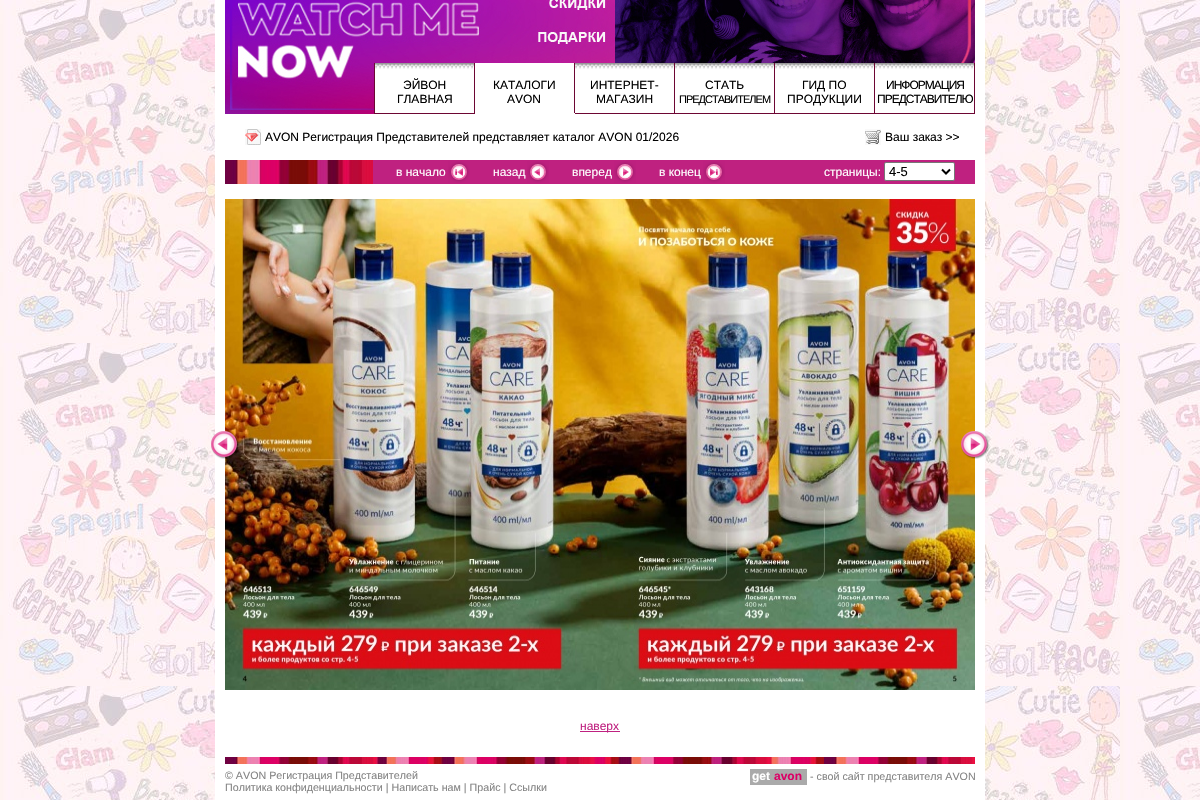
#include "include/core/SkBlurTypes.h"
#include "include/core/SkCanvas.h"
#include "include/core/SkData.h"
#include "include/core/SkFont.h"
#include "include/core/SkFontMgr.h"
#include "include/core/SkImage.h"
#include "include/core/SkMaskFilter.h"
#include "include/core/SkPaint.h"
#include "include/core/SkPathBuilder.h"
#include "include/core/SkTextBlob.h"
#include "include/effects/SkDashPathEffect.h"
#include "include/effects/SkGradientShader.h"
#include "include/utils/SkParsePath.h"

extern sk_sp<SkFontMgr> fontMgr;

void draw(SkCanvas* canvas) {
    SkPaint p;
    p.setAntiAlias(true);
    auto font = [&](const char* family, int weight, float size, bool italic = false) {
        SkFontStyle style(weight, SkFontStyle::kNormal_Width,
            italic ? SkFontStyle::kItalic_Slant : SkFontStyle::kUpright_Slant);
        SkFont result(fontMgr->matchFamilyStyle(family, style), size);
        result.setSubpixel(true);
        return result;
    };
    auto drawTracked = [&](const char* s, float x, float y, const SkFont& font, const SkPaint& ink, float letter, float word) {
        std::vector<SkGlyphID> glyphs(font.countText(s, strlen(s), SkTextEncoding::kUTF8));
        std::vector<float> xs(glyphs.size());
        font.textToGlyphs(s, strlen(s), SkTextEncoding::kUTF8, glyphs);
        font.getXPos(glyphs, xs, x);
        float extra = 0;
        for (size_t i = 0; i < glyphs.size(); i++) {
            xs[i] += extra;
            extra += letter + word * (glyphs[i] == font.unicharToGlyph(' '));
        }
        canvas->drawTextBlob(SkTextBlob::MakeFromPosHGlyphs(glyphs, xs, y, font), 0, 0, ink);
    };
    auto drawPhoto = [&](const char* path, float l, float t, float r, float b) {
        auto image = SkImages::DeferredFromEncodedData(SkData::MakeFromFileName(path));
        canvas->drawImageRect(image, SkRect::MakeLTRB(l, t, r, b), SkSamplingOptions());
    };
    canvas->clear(0xFFFFFFFF);
    drawPhoto("media/1.png", 0, 0, 1200, 800);
    p.setColor(0xFFFFFFFF);
    canvas->drawRect(SkRect::MakeLTRB(215, 0, 985, 800), p);
    drawPhoto("media/2.png", 225, 0, 975, 114);
    canvas->drawRect(SkRect::MakeLTRB(375, 63, 974, 113), p);
    p.setColor(0xFF6D0633);
    canvas->drawRect(SkRect::MakeLTRB(374, 63, 375, 114), p);
    drawPhoto("media/3.png", 375, 63, 474, 69);
    canvas->drawRect(SkRect::MakeLTRB(474, 63, 475, 114), p);
    canvas->drawRect(SkRect::MakeLTRB(375, 113, 475, 114), p);
    auto font1 = font("Liberation Sans", 400, 12);
    p.setColor(0xFF000000);
    canvas->drawString("ЭЙВОН", 403, 89, font1, p);
    canvas->drawString("ГЛАВНАЯ", 397, 103, font1, p);
    p.setColor(0xFF6D0633);
    canvas->drawRect(SkRect::MakeLTRB(574, 63, 575, 114), p);
    p.setColor(0xFFFFFFFF);
    canvas->drawRect(SkRect::MakeLTRB(475, 113, 575, 114), p);
    p.setColor(0xFF000000);
    canvas->drawString("КАТАЛОГИ", 493, 89, font1, p);
    canvas->drawString("AVON", 507, 103, font1, p);
    drawPhoto("media/3.png", 575, 63, 674, 69);
    p.setColor(0xFF6D0633);
    canvas->drawRect(SkRect::MakeLTRB(674, 63, 675, 114), p);
    canvas->drawRect(SkRect::MakeLTRB(575, 113, 675, 114), p);
    p.setColor(0xFF000000);
    canvas->drawString("ИНТЕРНЕТ-", 590, 89, font1, p);
    canvas->drawString("МАГАЗИН", 596, 103, font1, p);
    drawPhoto("media/3.png", 675, 63, 774, 69);
    p.setColor(0xFF6D0633);
    canvas->drawRect(SkRect::MakeLTRB(774, 63, 775, 114), p);
    canvas->drawRect(SkRect::MakeLTRB(675, 113, 775, 114), p);
    p.setColor(0xFF000000);
    canvas->drawString("СТАТЬ", 705, 89, font1, p);
    auto font2 = font("Liberation Sans", 400, 11);
    drawTracked("ПРЕДСТАВИТЕЛЕМ", 679, 103, font2, p, -1, 0);
    drawPhoto("media/3.png", 775, 63, 874, 69);
    p.setColor(0xFF6D0633);
    canvas->drawRect(SkRect::MakeLTRB(874, 63, 875, 114), p);
    canvas->drawRect(SkRect::MakeLTRB(775, 113, 875, 114), p);
    p.setColor(0xFF000000);
    canvas->drawString("ГИД ПО", 802, 89, font1, p);
    canvas->drawString("ПРОДУКЦИИ", 787, 103, font1, p);
    drawPhoto("media/3.png", 875, 63, 974, 69);
    p.setColor(0xFF6D0633);
    canvas->drawRect(SkRect::MakeLTRB(974, 63, 975, 114), p);
    canvas->drawRect(SkRect::MakeLTRB(875, 113, 975, 114), p);
    p.setColor(0xFF000000);
    drawTracked("ИНФОРМАЦИЯ", 886, 89, font1, p, -1, 0);
    drawTracked("ПРЕДСТАВИТЕЛЮ", 877, 103, font1, p, -1, 0);
    drawPhoto("media/4.png", 245, 129, 261, 145);
    canvas->drawString("AVON Регистрация Представителей представляет каталог AVON 01/2026", 265, 141, font1, p);
    drawPhoto("media/5.png", 865, 129, 881, 145);
    canvas->drawString("Ваш заказ >>", 885, 141, font1, p);
    drawPhoto("media/6.png", 225, 160, 373, 184);
    p.setColor(0xFFBF2180);
    canvas->drawRect(SkRect::MakeLTRB(373, 160, 975, 184), p);
    drawPhoto("media/7.png", 448, 161, 470, 183);
    p.setColor(0xFFFFFFFF);
    canvas->drawString("в начало", 396, 176, font1, p);
    drawPhoto("media/8.png", 527, 161, 549, 183);
    canvas->drawString("назад", 493, 176, font1, p);
    drawPhoto("media/9.png", 614, 161, 636, 183);
    canvas->drawString("вперед", 572, 176, font1, p);
    drawPhoto("media/10.png", 703, 161, 725, 183);
    canvas->drawString("в конец", 659, 176, font1, p);
    canvas->drawString("страницы:", 824, 176, font1, p);
    canvas->drawRoundRect(SkRect::MakeLTRB(884.5f, 162.5f, 954.5f, 180.5f), 1.5f, 1.5f, p);
    p.setStyle(SkPaint::kStroke_Style);
    p.setStrokeWidth(1);
    p.setColor(0xFF767676);
    canvas->drawRoundRect(SkRect::MakeLTRB(884.5f, 162.5f, 954.5f, 180.5f), 1.5f, 1.5f, p);
    p.setStrokeWidth(2);
    p.setColor(0xFF000000);
    canvas->drawPath(SkPathBuilder().moveTo(942, 169.5f).lineTo(946, 173.5f).lineTo(950, 169.5f).detach(), p);
    auto font3 = font("Liberation Sans", 400, 13);
    p.setStyle(SkPaint::kFill_Style);
    canvas->drawString("4-5", 889, 176, font3, p);
    drawPhoto("media/11.png", 225, 199, 975, 690);
    drawPhoto("media/12.png", 211, 431, 239, 459);
    drawPhoto("media/13.png", 961, 431, 989, 459);
    p.setColor(0xFFBF2180);
    canvas->drawRect(SkRect::MakeLTRB(580, 731, 620, 732), p);
    canvas->drawString("наверх", 580, 730, font1, p);
    drawPhoto("media/14.png", 225, 757, 975, 764);
    auto font4 = font("Liberation Sans", 400, 10.7f);
    p.setColor(0xFF848484);
    canvas->drawString("© AVON Регистрация Представителей", 225, 779, font4, p);
    canvas->drawString("Политика конфиденциальности | Написать нам | Прайс | Ссылки", 225, 791, font4, p);
    p.setColor(0xFFAAAAAA);
    canvas->drawRect(SkRect::MakeLTRB(750, 769, 807, 785), p);
    auto font5 = font("Liberation Sans", 700, 12);
    p.setColor(0xFFFFFFFF);
    canvas->drawString("get", 752, 780, font5, p);
    p.setColor(0xFFDB0066);
    canvas->drawString("avon", 774, 780, font5, p);
    p.setColor(0xFF848484);
    canvas->drawString("- свой сайт представителя AVON", 810, 780, font4, p);
}
